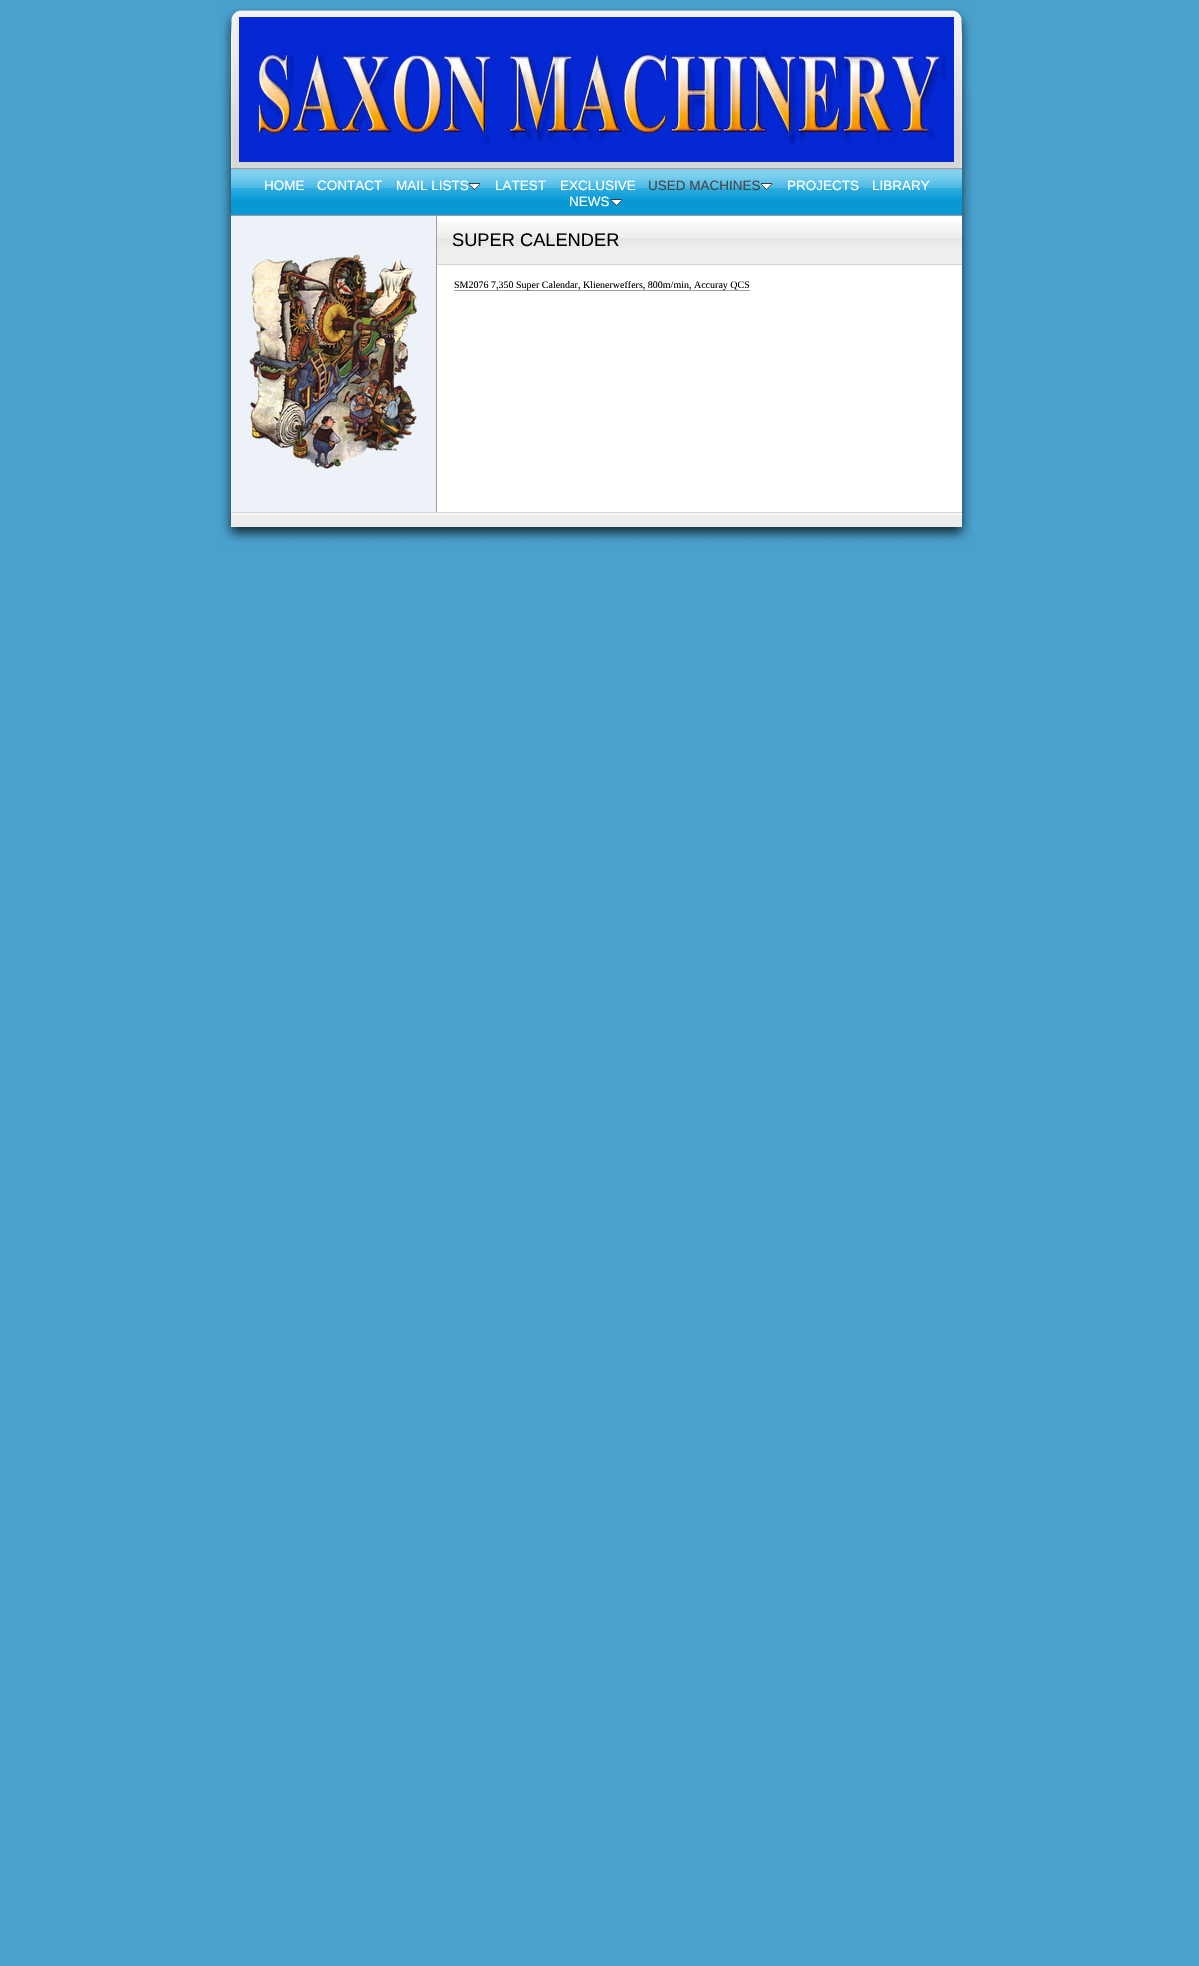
#include "include/core/SkBlurTypes.h"
#include "include/core/SkCanvas.h"
#include "include/core/SkData.h"
#include "include/core/SkFont.h"
#include "include/core/SkFontMgr.h"
#include "include/core/SkImage.h"
#include "include/core/SkMaskFilter.h"
#include "include/core/SkPaint.h"
#include "include/core/SkPathBuilder.h"
#include "include/core/SkTextBlob.h"
#include "include/effects/SkDashPathEffect.h"
#include "include/effects/SkGradientShader.h"
#include "include/utils/SkParsePath.h"

extern sk_sp<SkFontMgr> fontMgr;

void draw(SkCanvas* canvas) {
    SkPaint p;
    p.setAntiAlias(true);
    auto font = [&](const char* family, int weight, float size, bool italic = false) {
        SkFontStyle style(weight, SkFontStyle::kNormal_Width,
            italic ? SkFontStyle::kItalic_Slant : SkFontStyle::kUpright_Slant);
        SkFont result(fontMgr->matchFamilyStyle(family, style), size);
        result.setSubpixel(true);
        return result;
    };
    auto drawPhoto = [&](const char* path, float l, float t, float r, float b) {
        auto image = SkImages::DeferredFromEncodedData(SkData::MakeFromFileName(path));
        canvas->drawImageRect(image, SkRect::MakeLTRB(l, t, r, b), SkSamplingOptions());
    };
    canvas->clear(0xFF49A1CD);
    drawPhoto("media/1.png", 214, 0, 985, 548);
    drawPhoto("media/2.png", 231, 136, 962, 168);
    drawPhoto("media/3.png", 221, 0, 972, 136);
    drawPhoto("media/4.png", 239, 17, 954, 162);
    p.setColor(0xFF9E9E9E);
    canvas->drawRect(SkRect::MakeLTRB(231, 215, 962, 216), p);
    p.setColor(0xFF0A98D2);
    canvas->drawRect(SkRect::MakeLTRB(231, 202, 962, 215), p);
    drawPhoto("media/5.png", 231, 169, 962, 202);
    p.setColor(0xFF9E9E9E);
    canvas->drawRect(SkRect::MakeLTRB(231, 168, 962, 169), p);
    auto font1 = font("Liberation Sans", 400, 13.5f);
    p.setColor(0xFFFFFFFF);
    {
        const struct { const char* s; float x, y; } items[] = {
            {"HOME", 264, 190},
            {"CONTACT", 317, 190},
            {"MAIL LISTS", 396, 190},
        };
        for (auto [s, x, y] : items) {
            canvas->drawString(s, x, y, font1, p);
        }
    }
    drawPhoto("media/6.png", 469, 183, 480, 190);
    canvas->drawString("LATEST", 495, 190, font1, p);
    canvas->drawString("EXCLUSIVE", 560, 190, font1, p);
    p.setColor(0xFF444444);
    canvas->drawString("USED MACHINES", 648, 190, font1, p);
    drawPhoto("media/6.png", 761, 183, 772, 190);
    p.setColor(0xFFFFFFFF);
    {
        const struct { const char* s; float x, y; } items[] = {
            {"PROJECTS", 787, 190},
            {"LIBRARY", 872, 190},
            {"NEWS", 569, 206},
        };
        for (auto [s, x, y] : items) {
            canvas->drawString(s, x, y, font1, p);
        }
    }
    drawPhoto("media/7.png", 611, 199, 622, 206);
    drawPhoto("media/8.png", 249, 254, 417, 469);
    drawPhoto("media/9.png", 437, 221, 962, 264);
    p.setColor(0xFFD4D4D4);
    canvas->drawRect(SkRect::MakeLTRB(437, 264, 962, 265), p);
    auto font2 = font("Liberation Sans", 400, 18.25f);
    p.setColor(0xFF000000);
    canvas->drawString("SUPER CALENDER", 452, 246, font2, p);
    p.setColor(0xFF9E9E9E);
    canvas->drawRect(SkRect::MakeLTRB(454, 290, 750, 291), p);
    auto font3 = font("Liberation Serif", 400, 10);
    p.setColor(0xFF000000);
    canvas->drawString("SM2076 7,350 Super Calendar, Klienerweffers, 800m/min, Accuray QCS", 454, 288, font3, p);
    drawPhoto("media/10.png", 221, 512, 972, 548);
    p.setColor(0xFFD4D4D4);
    canvas->drawRect(SkRect::MakeLTRB(231, 512, 962, 513), p);
}
